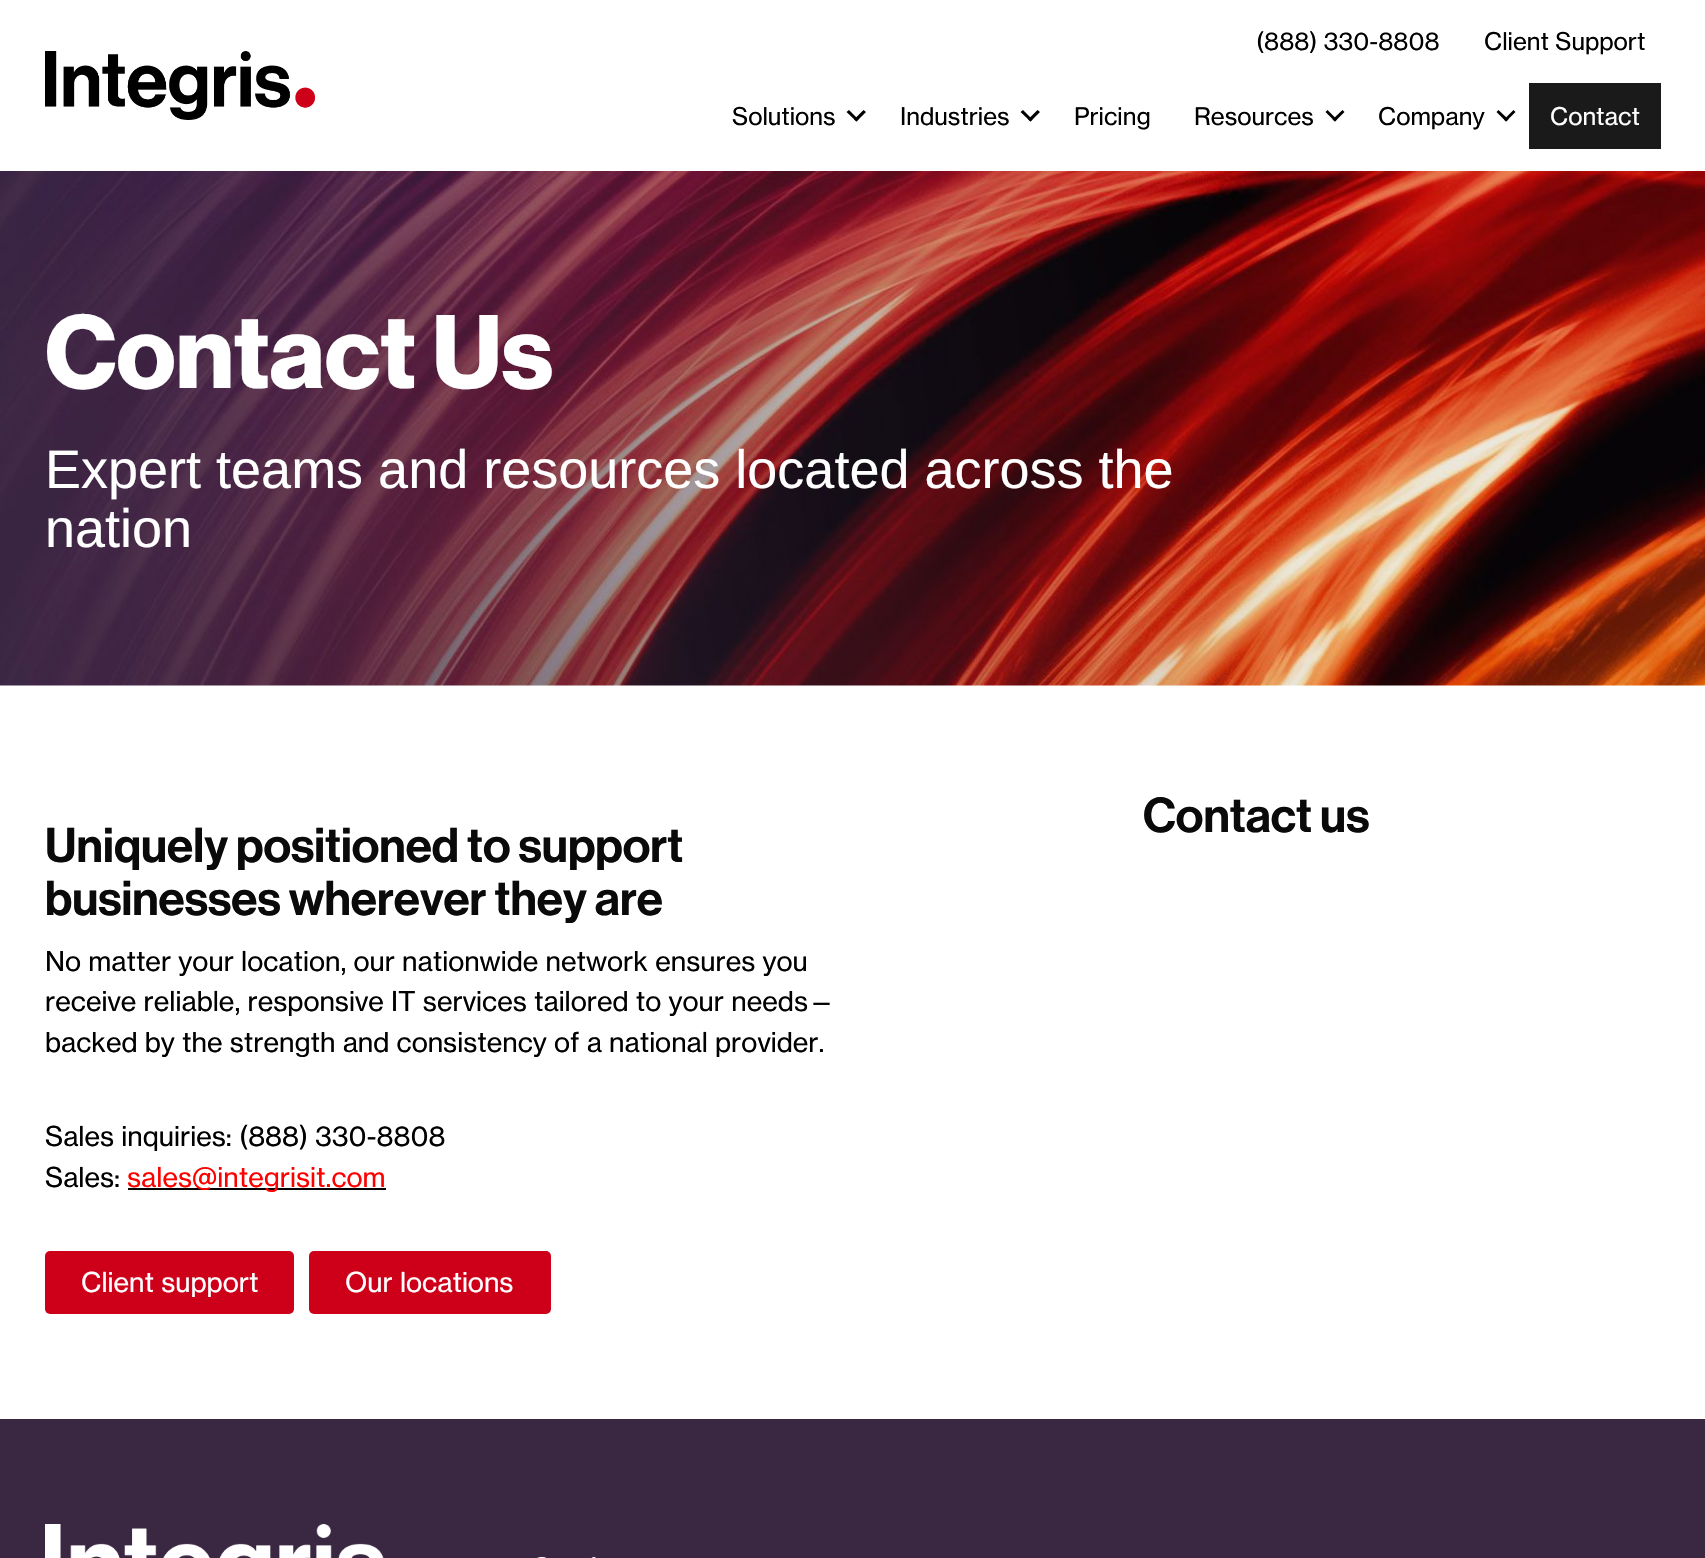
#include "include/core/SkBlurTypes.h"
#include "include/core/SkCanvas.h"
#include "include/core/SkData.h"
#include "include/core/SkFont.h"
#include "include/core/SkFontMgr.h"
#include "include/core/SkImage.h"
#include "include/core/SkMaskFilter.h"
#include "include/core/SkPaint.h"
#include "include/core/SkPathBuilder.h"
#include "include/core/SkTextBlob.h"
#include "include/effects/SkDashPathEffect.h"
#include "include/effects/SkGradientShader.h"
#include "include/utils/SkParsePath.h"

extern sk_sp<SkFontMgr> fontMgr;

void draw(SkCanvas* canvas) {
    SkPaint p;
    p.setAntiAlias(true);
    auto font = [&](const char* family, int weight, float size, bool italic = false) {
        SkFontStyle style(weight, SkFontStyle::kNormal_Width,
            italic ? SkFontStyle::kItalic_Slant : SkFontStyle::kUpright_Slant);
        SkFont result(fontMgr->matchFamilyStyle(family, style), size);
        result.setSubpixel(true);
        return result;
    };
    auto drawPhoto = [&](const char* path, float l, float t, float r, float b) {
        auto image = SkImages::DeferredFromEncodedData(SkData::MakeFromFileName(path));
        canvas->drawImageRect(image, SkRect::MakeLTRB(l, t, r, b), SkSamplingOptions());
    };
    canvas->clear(0xFFFFFFFF);
    drawPhoto("media/1.png", 45, 51, 315, 120);
    auto font1 = font("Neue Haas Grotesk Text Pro", 400, 24);
    p.setColor(0xFF000000);
    {
        const struct { const char* s; float x, y; } items[] = {
            {"(888) 330-8808", 1256, 50},
            {"Client Support", 1484, 50},
            {"Solutions", 732, 125},
        };
        for (auto [s, x, y] : items) {
            canvas->drawString(s, x, y, font1, p);
        }
    }
    canvas->drawPath(SkPathBuilder().moveTo(863.5f, 110).lineTo(866, 112).lineTo(856.5f, 121.5f).lineTo(854, 119.5f).close().detach(), p);
    canvas->drawPath(SkPathBuilder().moveTo(849, 110).lineTo(858.5f, 119.5f).lineTo(856.5f, 121.5f).lineTo(846.5f, 112).close().detach(), p);
    canvas->drawString("Industries", 900, 125, font1, p);
    canvas->drawPath(SkPathBuilder().moveTo(1037.5f, 110).lineTo(1040, 112).lineTo(1030.5f, 121.5f).lineTo(1028, 119.5f).close().detach(), p);
    canvas->drawPath(SkPathBuilder().moveTo(1023, 110).lineTo(1032.5f, 119.5f).lineTo(1030.5f, 121.5f).lineTo(1020.5f, 112).close().detach(), p);
    canvas->drawString("Pricing", 1074, 125, font1, p);
    canvas->drawString("Resources", 1194, 125, font1, p);
    canvas->drawPath(SkPathBuilder().moveTo(1342.5f, 110).lineTo(1344.5f, 112).lineTo(1335, 121.5f).lineTo(1332.5f, 119.5f).close().detach(), p);
    canvas->drawPath(SkPathBuilder().moveTo(1327.5f, 110).lineTo(1337, 119.5f).lineTo(1335, 121.5f).lineTo(1325.5f, 112).close().detach(), p);
    canvas->drawString("Company", 1378, 125, font1, p);
    canvas->drawPath(SkPathBuilder().moveTo(1513.5f, 110).lineTo(1515.5f, 112).lineTo(1506, 121.5f).lineTo(1504, 119.5f).close().detach(), p);
    canvas->drawPath(SkPathBuilder().moveTo(1498.5f, 110).lineTo(1508.5f, 119.5f).lineTo(1506, 121.5f).lineTo(1496.5f, 112).close().detach(), p);
    p.setColor(0xFF1A1A1A);
    canvas->drawRect(SkRect::MakeLTRB(1529, 83, 1661, 149), p);
    p.setColor(0xFFFFFFFF);
    canvas->drawString("Contact", 1550, 125, font1, p);
    drawPhoto("media/2.png", 0, 171, 1705, 686);
    auto font2 = font("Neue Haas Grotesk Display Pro", 700, 102);
    canvas->drawString("Contact Us", 45, 388, font2, p);
    auto font3 = font("Liberation Sans", 400, 54);
    canvas->drawString("Expert teams and resources located across the", 45, 488, font3, p);
    canvas->drawString("nation", 45, 547, font3, p);
    auto font4 = font("Neue Haas Grotesk Display Pro", 500, 48);
    p.setColor(0xFF0A0A0A);
    {
        const struct { const char* s; float x, y; } items[] = {
            {"Contact us", 1143, 832},
            {"Uniquely positioned to support", 45, 862},
            {"businesses wherever they are", 45, 915},
        };
        for (auto [s, x, y] : items) {
            canvas->drawString(s, x, y, font4, p);
        }
    }
    auto font5 = font("Neue Haas Grotesk Text Pro", 400, 27);
    p.setColor(0xFF000000);
    {
        const struct { const char* s; float x, y; } items[] = {
            {"No matter your location, our nationwide network ensures you", 45, 971},
            {"receive reliable, responsive IT services tailored to your needs—", 45, 1011},
            {"backed by the strength and consistency of a national provider.", 45, 1052},
            {"Sales inquiries: (888) 330-8808", 45, 1146},
            {"Sales:", 45, 1187},
        };
        for (auto [s, x, y] : items) {
            canvas->drawString(s, x, y, font5, p);
        }
    }
    canvas->drawRect(SkRect::MakeLTRB(128, 1188, 386, 1190), p);
    p.setColor(0xFFFF0000);
    canvas->drawString("sales@integrisit.com", 127, 1187, font5, p);
    p.setColor(0xFFCE0019);
    canvas->drawRoundRect(SkRect::MakeLTRB(45, 1251, 294, 1314), 5, 5, p);
    p.setColor(0xFFFFFFFF);
    canvas->drawString("Client support", 81, 1292, font5, p);
    p.setColor(0xFFCE0019);
    canvas->drawRoundRect(SkRect::MakeLTRB(309, 1251, 551, 1314), 5, 5, p);
    p.setColor(0xFFFFFFFF);
    canvas->drawString("Our locations", 345, 1292, font5, p);
    p.setColor(0xFF3A2742);
    canvas->drawRect(SkRect::MakeLTRB(0, 1419, 1705, 1558), p);
    drawPhoto("media/3.png", 45, 1524, 384, 1558);
    drawPhoto("media/4.png", 537, 1557, 546, 1558);
    drawPhoto("media/5.png", 591, 1557, 596, 1558);
}
